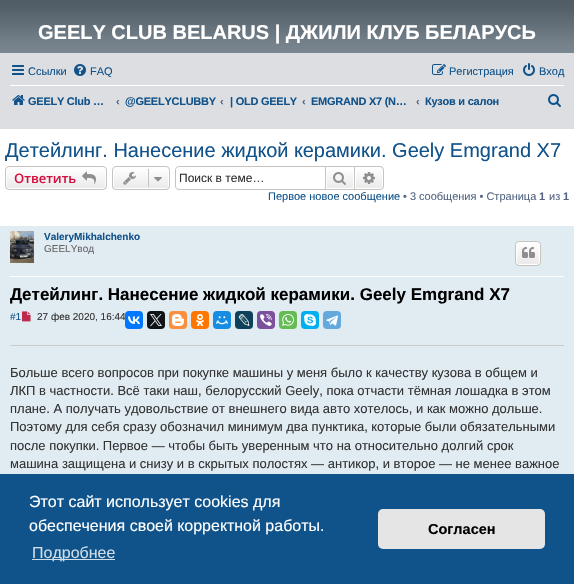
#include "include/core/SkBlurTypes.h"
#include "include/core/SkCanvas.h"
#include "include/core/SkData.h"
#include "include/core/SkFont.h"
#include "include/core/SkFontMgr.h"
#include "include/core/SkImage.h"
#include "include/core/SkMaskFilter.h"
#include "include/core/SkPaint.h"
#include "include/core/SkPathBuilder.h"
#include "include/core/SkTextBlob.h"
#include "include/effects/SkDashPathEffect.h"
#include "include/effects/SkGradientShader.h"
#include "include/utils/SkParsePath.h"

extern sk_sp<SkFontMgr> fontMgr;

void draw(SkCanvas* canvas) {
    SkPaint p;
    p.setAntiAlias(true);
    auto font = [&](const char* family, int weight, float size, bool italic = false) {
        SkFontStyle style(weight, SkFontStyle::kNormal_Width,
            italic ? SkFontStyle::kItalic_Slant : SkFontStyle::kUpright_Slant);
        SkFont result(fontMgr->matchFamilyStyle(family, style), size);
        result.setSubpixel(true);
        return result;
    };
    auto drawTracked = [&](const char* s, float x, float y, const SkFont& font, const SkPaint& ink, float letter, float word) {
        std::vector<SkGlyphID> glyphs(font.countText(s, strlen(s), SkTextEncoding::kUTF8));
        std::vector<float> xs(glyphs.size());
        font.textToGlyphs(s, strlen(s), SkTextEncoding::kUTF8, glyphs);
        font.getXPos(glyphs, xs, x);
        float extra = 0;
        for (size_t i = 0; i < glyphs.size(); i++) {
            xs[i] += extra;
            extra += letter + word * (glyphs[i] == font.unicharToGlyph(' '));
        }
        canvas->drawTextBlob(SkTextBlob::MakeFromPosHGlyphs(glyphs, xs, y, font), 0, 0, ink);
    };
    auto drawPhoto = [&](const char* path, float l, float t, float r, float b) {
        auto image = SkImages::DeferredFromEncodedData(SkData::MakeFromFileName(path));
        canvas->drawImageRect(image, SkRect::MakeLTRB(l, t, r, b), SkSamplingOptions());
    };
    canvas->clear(0xFFFFFFFF);
    {
        const SkColor colors[] = {0xFF6E777F, 0xFF505C65, 0xFF56626B, 0xFF737F88, 0xFF7C8891};
        const float stops[] = {0, 0.01f, 0.2f, 0.75f, 1};
        const SkPoint ends[] = {{287, 0}, {287, 54}};
        p.setShader(SkGradientShader::MakeLinear(ends, colors, stops, 5, SkTileMode::kClamp));
        p.setAlpha(255);
    }
    canvas->drawRect(SkRect::MakeLTRB(0, 0, 574, 53), p);
    auto font1 = font("Liberation Sans", 700, 20);
    p.setShader(nullptr);
    p.setColor(0xFFFFFFFF);
    canvas->drawString("GEELY CLUB BELARUS | ДЖИЛИ КЛУБ БЕЛАРУСЬ", 38, 39, font1, p);
    p.setColor(0xFFDCDEE2);
    canvas->drawRect(SkRect::MakeLTRB(0, 53, 574, 129), p);
    drawPhoto("media/1.png", 12, 65, 24, 75);
    auto font2 = font("Liberation Sans", 400, 11);
    p.setColor(0xFF105289);
    canvas->drawString("Ссылки", 28, 75, font2, p);
    drawPhoto("media/2.png", 74, 64, 86, 76);
    canvas->drawString("FAQ", 90, 75, font2, p);
    drawPhoto("media/3.png", 432, 64, 446, 75);
    canvas->drawString("Регистрация", 449, 75, font2, p);
    drawPhoto("media/4.png", 523, 63, 535, 76);
    canvas->drawString("Вход", 539, 75, font2, p);
    p.setColor(0xFFFFFFFF);
    canvas->drawRect(SkRect::MakeLTRB(10, 85, 564, 86), p);
    drawPhoto("media/5.png", 12, 95, 25, 105);
    auto font3 = font("Liberation Sans", 700, 11);
    p.setColor(0xFF105289);
    drawTracked("GEELY Club …", 28, 105, font3, p, -0.25f, 0);
    p.setColor(0xFF536482);
    canvas->drawString("‹", 116, 105, font3, p);
    p.setColor(0xFF105289);
    drawTracked("@GEELYCLUBBY", 125, 105, font3, p, -0.25f, 0);
    p.setColor(0xFF536482);
    canvas->drawString("‹", 220, 105, font3, p);
    p.setColor(0xFF105289);
    drawTracked("| OLD GEELY", 230, 105, font3, p, -0.25f, 0);
    p.setColor(0xFF536482);
    canvas->drawString("‹", 302, 105, font3, p);
    p.setColor(0xFF105289);
    drawTracked("EMGRAND X7 (N…", 311, 105, font3, p, -0.25f, 0);
    p.setColor(0xFF536482);
    canvas->drawString("‹", 416, 105, font3, p);
    p.setColor(0xFF105289);
    drawTracked("Кузов и салон", 425, 105, font3, p, -0.25f, 0);
    drawPhoto("media/6.png", 548, 94, 561, 107);
    auto font4 = font("Liberation Sans", 400, 20);
    canvas->drawString("Детейлинг. Нанесение жидкой керамики. Geely Emgrand X7", 5, 157, font4, p);
    canvas->save();
    canvas->clipPath(SkPathBuilder().moveTo(9, 166).lineTo(103, 166).cubicTo(105, 166, 107, 168, 107, 170).lineTo(107, 186).cubicTo(107, 188, 105, 190, 103, 190).lineTo(9, 190).cubicTo(7, 190, 5, 188, 5, 186).lineTo(5, 170).cubicTo(5, 168, 7, 166, 9, 166).close().detach(), true);
    {
        const SkColor colors[] = {0xFFFFFFFF, 0xFFE9E9E9};
        const float stops[] = {0, 1};
        const SkPoint ends[] = {{56, 167}, {56, 189}};
        p.setShader(SkGradientShader::MakeLinear(ends, colors, stops, 2, SkTileMode::kClamp));
        p.setAlpha(255);
    }
    canvas->drawRect(SkRect::MakeLTRB(5, 167, 107, 189), p);
    canvas->restore();
    p.setStyle(SkPaint::kStroke_Style);
    p.setStrokeWidth(1);
    p.setShader(nullptr);
    p.setColor(0xFFFFFFFF);
    canvas->drawRoundRect(SkRect::MakeLTRB(6.5f, 167.5f, 105.5f, 188.5f), 2.5f, 2.5f, p);
    p.setColor(0xFFC7C3BF);
    canvas->drawRoundRect(SkRect::MakeLTRB(5.5f, 166.5f, 106.5f, 189.5f), 3.5f, 3.5f, p);
    auto font5 = font("Open Sans", 600, 13);
    p.setStyle(SkPaint::kFill_Style);
    p.setColor(0xFFD31141);
    canvas->drawString("Ответить", 14, 183, font5, p);
    drawPhoto("media/7.png", 82, 171, 96, 184);
    canvas->save();
    canvas->clipPath(SkPathBuilder().moveTo(116, 166).lineTo(166, 166).cubicTo(168, 166, 170, 168, 170, 170).lineTo(170, 186).cubicTo(170, 188, 168, 190, 166, 190).lineTo(116, 190).cubicTo(114, 190, 112, 188, 112, 186).lineTo(112, 170).cubicTo(112, 168, 114, 166, 116, 166).close().detach(), true);
    {
        const SkColor colors[] = {0xFFFFFFFF, 0xFFE9E9E9};
        const float stops[] = {0, 1};
        const SkPoint ends[] = {{141, 167}, {141, 189}};
        p.setShader(SkGradientShader::MakeLinear(ends, colors, stops, 2, SkTileMode::kClamp));
        p.setAlpha(255);
    }
    canvas->drawRect(SkRect::MakeLTRB(112, 167, 170, 189), p);
    canvas->restore();
    p.setStyle(SkPaint::kStroke_Style);
    p.setShader(nullptr);
    p.setColor(0xFFFFFFFF);
    canvas->drawRoundRect(SkRect::MakeLTRB(113.5f, 167.5f, 168.5f, 188.5f), 2.5f, 2.5f, p);
    p.setColor(0xFFC7C3BF);
    canvas->drawRoundRect(SkRect::MakeLTRB(112.5f, 166.5f, 169.5f, 189.5f), 3.5f, 3.5f, p);
    drawPhoto("media/8.png", 123, 172, 136, 185);
    p.setStyle(SkPaint::kFill_Style);
    canvas->drawRect(SkRect::MakeLTRB(148, 169, 149, 187), p);
    drawPhoto("media/9.png", 154, 177, 162, 182);
    canvas->drawPath(SkPathBuilder(SkPathFillType::kEvenOdd).moveTo(179, 166).lineTo(325, 166).lineTo(325, 190).lineTo(179, 190).cubicTo(177, 190, 175, 188, 175, 186).lineTo(175, 170).cubicTo(175, 168, 177, 166, 179, 166).close().moveTo(179, 167).lineTo(325, 167).lineTo(325, 189).lineTo(179, 189).cubicTo(177, 189, 176, 188, 176, 186).lineTo(176, 170).cubicTo(176, 168, 177, 167, 179, 167).close().detach(), p);
    auto font6 = font("Liberation Sans", 400, 12);
    p.setColor(0xFF333333);
    canvas->drawString("Поиск в теме…", 179, 182, font6, p);
    {
        const SkColor colors[] = {0xFFFFFFFF, 0xFFE9E9E9};
        const float stops[] = {0, 1};
        const SkPoint ends[] = {{340, 167}, {340, 189}};
        p.setShader(SkGradientShader::MakeLinear(ends, colors, stops, 2, SkTileMode::kClamp));
        p.setAlpha(255);
    }
    canvas->drawRect(SkRect::MakeLTRB(327, 170, 353, 188), p);
    p.setStyle(SkPaint::kStroke_Style);
    p.setShader(nullptr);
    p.setColor(0xFFC7C3BF);
    canvas->drawRect(SkRect::MakeLTRB(325.5f, 166.5f, 354.5f, 189.5f), p);
    drawPhoto("media/10.png", 333, 172, 346, 185);
    p.setStyle(SkPaint::kFill_Style);
    {
        const SkColor colors[] = {0xFFFFFFFF, 0xFFE9E9E9};
        const float stops[] = {0, 1};
        const SkPoint ends[] = {{369, 167}, {369, 189}};
        p.setShader(SkGradientShader::MakeLinear(ends, colors, stops, 2, SkTileMode::kClamp));
        p.setAlpha(255);
    }
    canvas->drawPath(SkPathBuilder().moveTo(355.5f, 167.5f).lineTo(380, 167.5f).cubicTo(381.5f, 167.5f, 382.5f, 168.5f, 382.5f, 170).lineTo(382.5f, 186).cubicTo(382.5f, 187.5f, 381.5f, 188.5f, 380, 188.5f).lineTo(355.5f, 188.5f).close().detach(), p);
    p.setStyle(SkPaint::kStroke_Style);
    p.setShader(nullptr);
    p.setColor(0xFFFFFFFF);
    canvas->drawPath(SkPathBuilder().moveTo(355.5f, 167.5f).lineTo(380, 167.5f).cubicTo(381.5f, 167.5f, 382.5f, 168.5f, 382.5f, 170).lineTo(382.5f, 186).cubicTo(382.5f, 187.5f, 381.5f, 188.5f, 380, 188.5f).lineTo(355.5f, 188.5f).close().detach(), p);
    p.setStyle(SkPaint::kFill_Style);
    p.setColor(0xFFC7C3BF);
    canvas->drawPath(SkPathBuilder(SkPathFillType::kEvenOdd).moveTo(355, 166).lineTo(380, 166).cubicTo(382, 166, 384, 168, 384, 170).lineTo(384, 186).cubicTo(384, 188, 382, 190, 380, 190).lineTo(355, 190).close().moveTo(355, 167).lineTo(380, 167).cubicTo(381.5f, 167, 383, 168.5f, 383, 170).lineTo(383, 186).cubicTo(383, 187.5f, 381.5f, 189, 380, 189).lineTo(355, 189).close().detach(), p);
    drawPhoto("media/11.png", 363, 172, 375, 184);
    p.setColor(0xFF105289);
    canvas->drawString("Первое новое сообщение", 268, 200, font2, p);
    p.setColor(0xFF536482);
    canvas->drawString("• 3 сообщения • Страница", 403, 200, font2, p);
    canvas->drawString("1", 539, 200, font3, p);
    canvas->drawString("из", 549, 200, font2, p);
    canvas->drawString("1", 563, 200, font3, p);
    p.setColor(0xFFE1EBF2);
    canvas->drawRect(SkRect::MakeLTRB(0, 226, 574, 474), p);
    p.setColor(0xFFFFFFFF);
    canvas->drawRect(SkRect::MakeLTRB(10, 276, 564, 277), p);
    drawPhoto("media/12.png", 10, 231, 34, 263);
    auto font7 = font("Liberation Sans", 700, 10);
    p.setColor(0xFF105289);
    canvas->drawString("ValeryMikhalchenko", 44, 240, font7, p);
    auto font8 = font("Liberation Sans", 400, 10);
    p.setColor(0xFF666666);
    canvas->drawString("GEELYвод", 44, 252, font8, p);
    canvas->save();
    canvas->clipPath(SkPathBuilder().moveTo(519, 241).lineTo(537, 241).cubicTo(539, 241, 541, 243, 541, 245).lineTo(541, 262).cubicTo(541, 264, 539, 266, 537, 266).lineTo(519, 266).cubicTo(517, 266, 515, 264, 515, 262).lineTo(515, 245).cubicTo(515, 243, 517, 241, 519, 241).close().detach(), true);
    {
        const SkColor colors[] = {0xFFFFFFFF, 0xFFE9E9E9};
        const float stops[] = {0, 1};
        const SkPoint ends[] = {{528, 242}, {528, 265}};
        p.setShader(SkGradientShader::MakeLinear(ends, colors, stops, 2, SkTileMode::kClamp));
        p.setAlpha(255);
    }
    canvas->drawRect(SkRect::MakeLTRB(515, 242, 541, 265), p);
    canvas->restore();
    p.setStyle(SkPaint::kStroke_Style);
    p.setShader(nullptr);
    p.setColor(0xFFFFFFFF);
    canvas->drawRoundRect(SkRect::MakeLTRB(516.5f, 242.5f, 539.5f, 264.5f), 2.5f, 2.5f, p);
    p.setColor(0xFFC7C3BF);
    canvas->drawRoundRect(SkRect::MakeLTRB(515.5f, 241.5f, 540.5f, 265.5f), 3.5f, 3.5f, p);
    drawPhoto("media/13.png", 522, 247, 535, 258);
    auto font9 = font("Liberation Sans", 700, 17);
    p.setStyle(SkPaint::kFill_Style);
    p.setColor(0xFF000000);
    canvas->drawString("Детейлинг. Нанесение жидкой керамики. Geely Emgrand X7", 10, 300, font9, p);
    p.setColor(0xFF105289);
    canvas->drawString("#1", 10, 320, font8, p);
    drawPhoto("media/14.png", 22, 311, 31, 322);
    p.setColor(0xFF333333);
    canvas->drawString("27 фев 2020, 16:44", 37, 320, font8, p);
    p.setColor(0xFF0077FF);
    canvas->drawRoundRect(SkRect::MakeLTRB(125, 311, 143, 329), 4, 4, p);
    drawPhoto("media/15.png", 128, 316, 140, 324);
    p.setColor(0xFF0F1419);
    canvas->drawRoundRect(SkRect::MakeLTRB(147, 311, 165, 329), 4, 4, p);
    drawPhoto("media/16.png", 150, 314, 162, 326);
    p.setColor(0xFFFB8F3D);
    canvas->drawRoundRect(SkRect::MakeLTRB(169, 311, 187, 329), 4, 4, p);
    drawPhoto("media/17.png", 172, 314, 184, 326);
    p.setColor(0xFFFF7700);
    canvas->drawRoundRect(SkRect::MakeLTRB(191, 311, 209, 329), 4, 4, p);
    drawPhoto("media/18.png", 196, 314, 204, 326);
    p.setColor(0xFF168DE2);
    canvas->drawRoundRect(SkRect::MakeLTRB(213, 311, 231, 329), 4, 4, p);
    drawPhoto("media/19.png", 216, 316, 228, 325);
    p.setColor(0xFF0D425A);
    canvas->drawRoundRect(SkRect::MakeLTRB(235, 311, 253, 329), 4, 4, p);
    drawPhoto("media/20.png", 238, 314, 250, 326);
    p.setColor(0xFF7B519D);
    canvas->drawRoundRect(SkRect::MakeLTRB(257, 311, 275, 329), 4, 4, p);
    drawPhoto("media/21.png", 260, 314, 272, 326);
    p.setColor(0xFF65BC54);
    canvas->drawRoundRect(SkRect::MakeLTRB(279, 311, 297, 329), 4, 4, p);
    drawPhoto("media/22.png", 282, 314, 294, 326);
    p.setColor(0xFF00AFF0);
    canvas->drawRoundRect(SkRect::MakeLTRB(301, 311, 319, 329), 4, 4, p);
    drawPhoto("media/23.png", 304, 314, 316, 326);
    p.setColor(0xFF64A9DC);
    canvas->drawRoundRect(SkRect::MakeLTRB(323, 311, 341, 329), 4, 4, p);
    drawPhoto("media/24.png", 326, 315, 338, 326);
    p.setColor(0xFFCCCCCC);
    canvas->drawRect(SkRect::MakeLTRB(10, 345, 564, 346), p);
    auto font10 = font("Liberation Sans", 400, 13);
    p.setColor(0xFF333333);
    {
        const struct { const char* s; float x, y; } items[] = {
            {"Больше всего вопросов при покупке машины у меня было к качеству кузова в общем и", 10, 377},
            {"ЛКП в частности. Всё таки наш, белорусский Geely, пока отчасти тёмная лошадка в этом", 10, 395},
            {"плане. А получать удовольствие от внешнего вида авто хотелось, и как можно дольше.", 10, 413},
            {"Поэтому для себя сразу обозначил минимум два пунктика, которые были обязательными", 10, 431},
            {"после покупки. Первое — чтобы быть уверенным что на относительно долгий срок", 10, 450},
            {"машина защищена и снизу и в скрытых полостях — антикор, и второе — не менее важное", 10, 468},
        };
        for (auto [s, x, y] : items) {
            canvas->drawString(s, x, y, font10, p);
        }
    }
    p.setColor(0xFF0F538A);
    canvas->drawRect(SkRect::MakeLTRB(0, 474, 574, 584), p);
    auto font11 = font("Liberation Sans", 400, 16);
    p.setColor(0xFFFFFFFF);
    canvas->drawString("Этот сайт использует cookies для", 29, 507, font11, p);
    canvas->drawString("обеспечения своей корректной работы.", 29, 531, font11, p);
    p.setColor(0xFFCFDDE8);
    canvas->drawRect(SkRect::MakeLTRB(32, 559, 115, 560), p);
    canvas->drawString("Подробнее", 32, 558, font11, p);
    p.setColor(0xFFE5E5E5);
    canvas->drawRoundRect(SkRect::MakeLTRB(378, 509, 545, 549), 5, 5, p);
    auto font12 = font("Liberation Sans", 700, 14.5f);
    p.setColor(0xFF000000);
    canvas->drawString("Согласен", 428, 534, font12, p);
}
